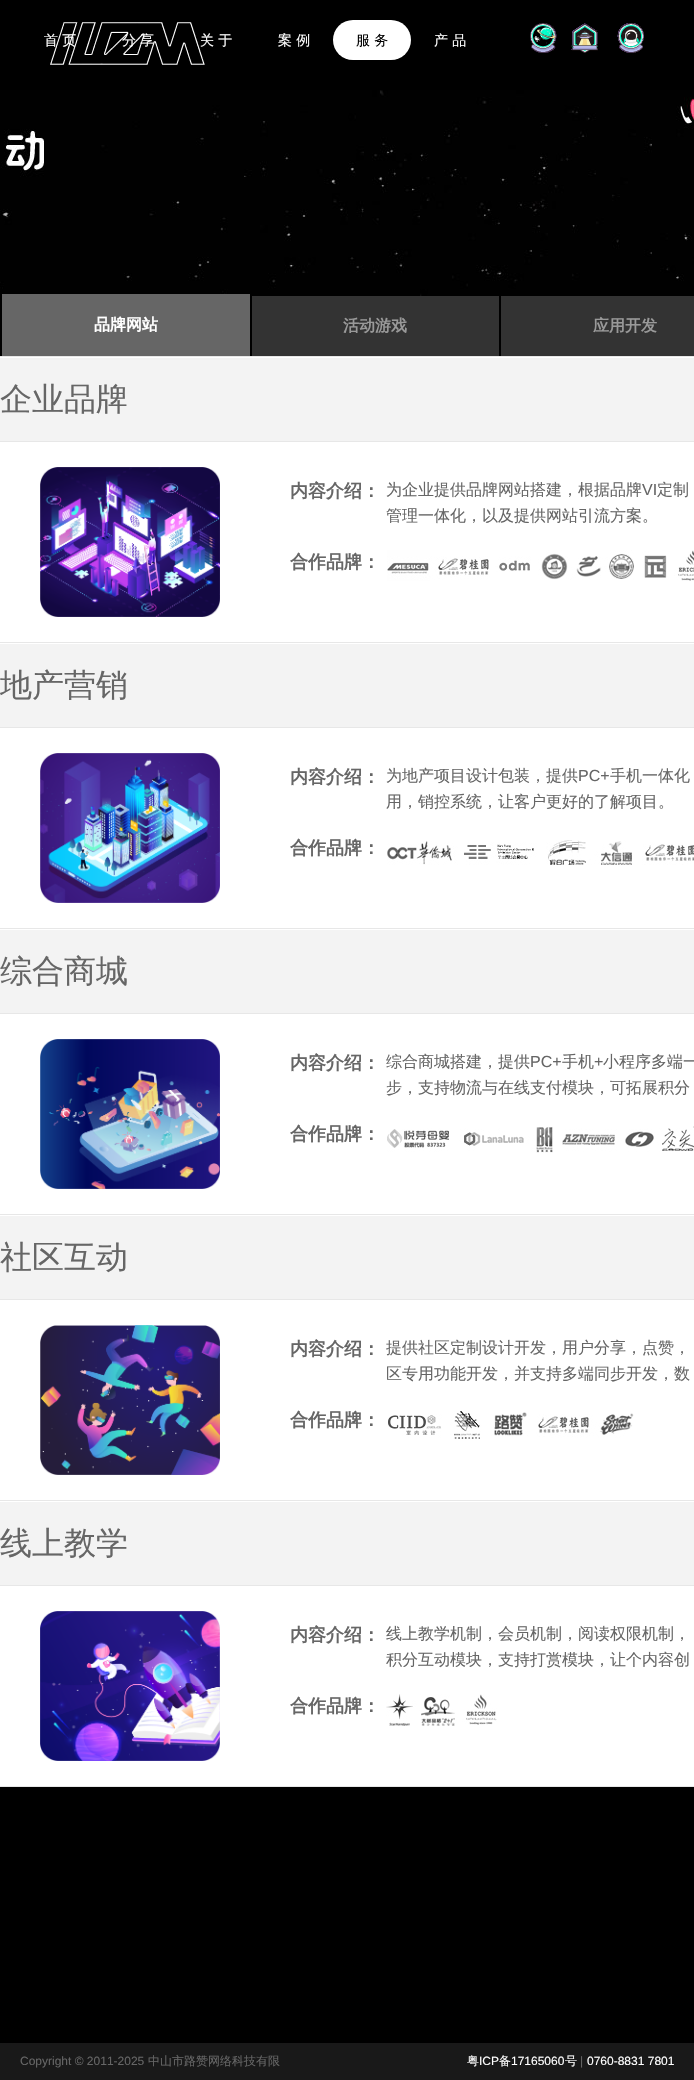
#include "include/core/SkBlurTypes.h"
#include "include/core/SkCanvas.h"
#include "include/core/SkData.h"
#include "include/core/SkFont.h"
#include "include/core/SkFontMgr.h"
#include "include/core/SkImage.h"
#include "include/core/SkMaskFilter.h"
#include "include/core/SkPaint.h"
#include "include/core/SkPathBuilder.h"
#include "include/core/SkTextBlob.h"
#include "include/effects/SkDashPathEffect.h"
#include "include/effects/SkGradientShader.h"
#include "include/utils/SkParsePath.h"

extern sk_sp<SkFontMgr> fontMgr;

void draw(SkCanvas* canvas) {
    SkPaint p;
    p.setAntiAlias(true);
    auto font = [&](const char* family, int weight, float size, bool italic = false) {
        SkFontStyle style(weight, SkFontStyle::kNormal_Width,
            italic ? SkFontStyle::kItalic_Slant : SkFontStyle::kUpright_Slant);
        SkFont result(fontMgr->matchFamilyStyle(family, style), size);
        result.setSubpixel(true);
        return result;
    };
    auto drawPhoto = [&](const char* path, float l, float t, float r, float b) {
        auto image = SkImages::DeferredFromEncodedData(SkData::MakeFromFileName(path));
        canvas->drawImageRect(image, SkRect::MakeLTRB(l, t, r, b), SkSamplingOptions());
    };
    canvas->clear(0xFF000000);
    drawPhoto("media/1.png", 50, 22, 205, 65);
    drawPhoto("media/2.png", 530, 23, 557, 53);
    drawPhoto("media/3.png", 571, 23, 598, 53);
    drawPhoto("media/4.png", 617, 23, 644, 53);
    auto font1 = font("WenQuanYi Zen Hei", 500, 14);
    p.setColor(0xFFFFFFFF);
    {
        const struct { const char* s; float x, y; } items[] = {
            {"首 页", 44, 45},
            {"分 享", 122, 45},
            {"关 于", 200, 45},
            {"案 例", 278, 45},
        };
        for (auto [s, x, y] : items) {
            canvas->drawString(s, x, y, font1, p);
        }
    }
    canvas->drawRoundRect(SkRect::MakeLTRB(333, 20, 411, 60), 20, 20, p);
    p.setColor(0xFF000000);
    canvas->drawString("服 务", 356, 45, font1, p);
    p.setColor(0xFFFFFFFF);
    canvas->drawString("产 品", 434, 45, font1, p);
    canvas->drawRect(SkRect::MakeLTRB(0, 442, 694, 1786), p);
    drawPhoto("media/5.png", 0, 90, 694, 296);
    p.setColor(0xFF666666);
    canvas->drawRect(SkRect::MakeLTRB(2, 294, 250, 356), p);
    auto font2 = font("WenQuanYi Zen Hei", 700, 16);
    p.setColor(0xFFFFFFFF);
    canvas->drawString("品牌网站", 94, 330, font2, p);
    p.setColor(0xFF333333);
    canvas->drawRect(SkRect::MakeLTRB(252, 296, 499, 356), p);
    p.setColor(0xFF999999);
    canvas->drawString("活动游戏", 343, 331, font2, p);
    p.setColor(0xFF333333);
    canvas->drawRect(SkRect::MakeLTRB(501, 296, 694, 356), p);
    p.setColor(0xFF999999);
    canvas->drawString("应用开发", 593, 331, font2, p);
    p.setColor(0xFFE7E7E7);
    canvas->drawRect(SkRect::MakeLTRB(0, 1786, 694, 1787), p);
    drawPhoto("media/6.png", 0, 356, 694, 442);
    auto font3 = font("WenQuanYi Zen Hei", 500, 32);
    p.setColor(0xFF666666);
    canvas->drawString("企业品牌", 0, 410, font3, p);
    drawPhoto("media/7.png", 40, 467, 220, 617);
    auto font4 = font("WenQuanYi Zen Hei", 700, 18);
    canvas->drawString("内容介绍：", 290, 497, font4, p);
    auto font5 = font("WenQuanYi Zen Hei", 500, 16);
    canvas->drawString("为企业提供品牌网站搭建，根据品牌", 386, 495, font5, p);
    auto font6 = font("Liberation Sans", 400, 16);
    canvas->drawString("VI", 642, 495, font6, p);
    canvas->drawString("定制", 657, 495, font5, p);
    canvas->drawString("管理一体化，以及提供网站引流方案。", 386, 521, font5, p);
    canvas->drawString("合作品牌：", 290, 568, font4, p);
    drawPhoto("media/8.png", 387, 550, 694, 581);
    drawPhoto("media/6.png", 0, 642, 694, 728);
    canvas->drawString("地产营销", 0, 696, font3, p);
    drawPhoto("media/9.png", 40, 753, 220, 903);
    canvas->drawString("内容介绍：", 290, 783, font4, p);
    canvas->drawString("为地产项目设计包装，提供", 386, 781, font5, p);
    canvas->drawString("PC+", 578, 781, font6, p);
    canvas->drawString("手机一体化", 610, 781, font5, p);
    canvas->drawString("用，销控系统，让客户更好的了解项目。", 386, 807, font5, p);
    canvas->drawString("合作品牌：", 290, 854, font4, p);
    drawPhoto("media/10.png", 387, 840, 694, 865);
    drawPhoto("media/6.png", 0, 928, 694, 1014);
    canvas->drawString("综合商城", 0, 982, font3, p);
    drawPhoto("media/11.png", 40, 1039, 220, 1189);
    canvas->drawString("内容介绍：", 290, 1069, font4, p);
    canvas->drawString("综合商城搭建，提供", 386, 1067, font5, p);
    canvas->drawString("PC+", 530, 1067, font6, p);
    canvas->drawString("手机", 562, 1067, font5, p);
    canvas->drawString("+", 594, 1067, font6, p);
    canvas->drawString("小程序多端一", 603, 1067, font5, p);
    canvas->drawString("步，支持物流与在线支付模块，可拓展积分", 386, 1093, font5, p);
    canvas->drawString("合作品牌：", 290, 1140, font4, p);
    drawPhoto("media/12.png", 387, 1126, 694, 1153);
    drawPhoto("media/6.png", 0, 1214, 694, 1300);
    canvas->drawString("社区互动", 0, 1268, font3, p);
    drawPhoto("media/13.png", 40, 1325, 220, 1475);
    canvas->drawString("内容介绍：", 290, 1355, font4, p);
    canvas->drawString("提供社区定制设计开发，用户分享，点赞，", 386, 1353, font5, p);
    canvas->drawString("区专用功能开发，并支持多端同步开发，数", 386, 1379, font5, p);
    canvas->drawString("合作品牌：", 290, 1426, font4, p);
    drawPhoto("media/14.png", 388, 1411, 634, 1439);
    drawPhoto("media/6.png", 0, 1500, 694, 1586);
    canvas->drawString("线上教学", 0, 1554, font3, p);
    drawPhoto("media/15.png", 40, 1611, 220, 1761);
    canvas->drawString("内容介绍：", 290, 1641, font4, p);
    canvas->drawString("线上教学机制，会员机制，阅读权限机制，", 386, 1639, font5, p);
    canvas->drawString("积分互动模块，支持打赏模块，让个内容创", 386, 1665, font5, p);
    canvas->drawString("合作品牌：", 290, 1712, font4, p);
    drawPhoto("media/16.png", 386, 1694, 497, 1726);
    p.setColor(0xFF191919);
    canvas->drawRect(SkRect::MakeLTRB(0, 2043, 694, 2080), p);
    auto font7 = font("Liberation Sans", 400, 12);
    p.setColor(0xFF666666);
    canvas->drawString("Copyright © 2011-2025", 20, 2065, font7, p);
    auto font8 = font("WenQuanYi Zen Hei", 500, 12);
    canvas->drawString("中山市路赞网络科技有限", 148, 2065, font8, p);
    p.setColor(0xFFFFFFFF);
    canvas->drawString("粤", 467, 2065, font8, p);
    canvas->drawString("ICP", 479, 2065, font7, p);
    canvas->drawString("备", 499, 2065, font8, p);
    canvas->drawString("17165060", 511, 2065, font7, p);
    canvas->drawString("号", 565, 2065, font8, p);
    p.setColor(0xFF666666);
    canvas->drawString("|", 580, 2065, font7, p);
    p.setColor(0xFFFFFFFF);
    canvas->drawString("0760-8831 7801", 587, 2065, font7, p);
}
